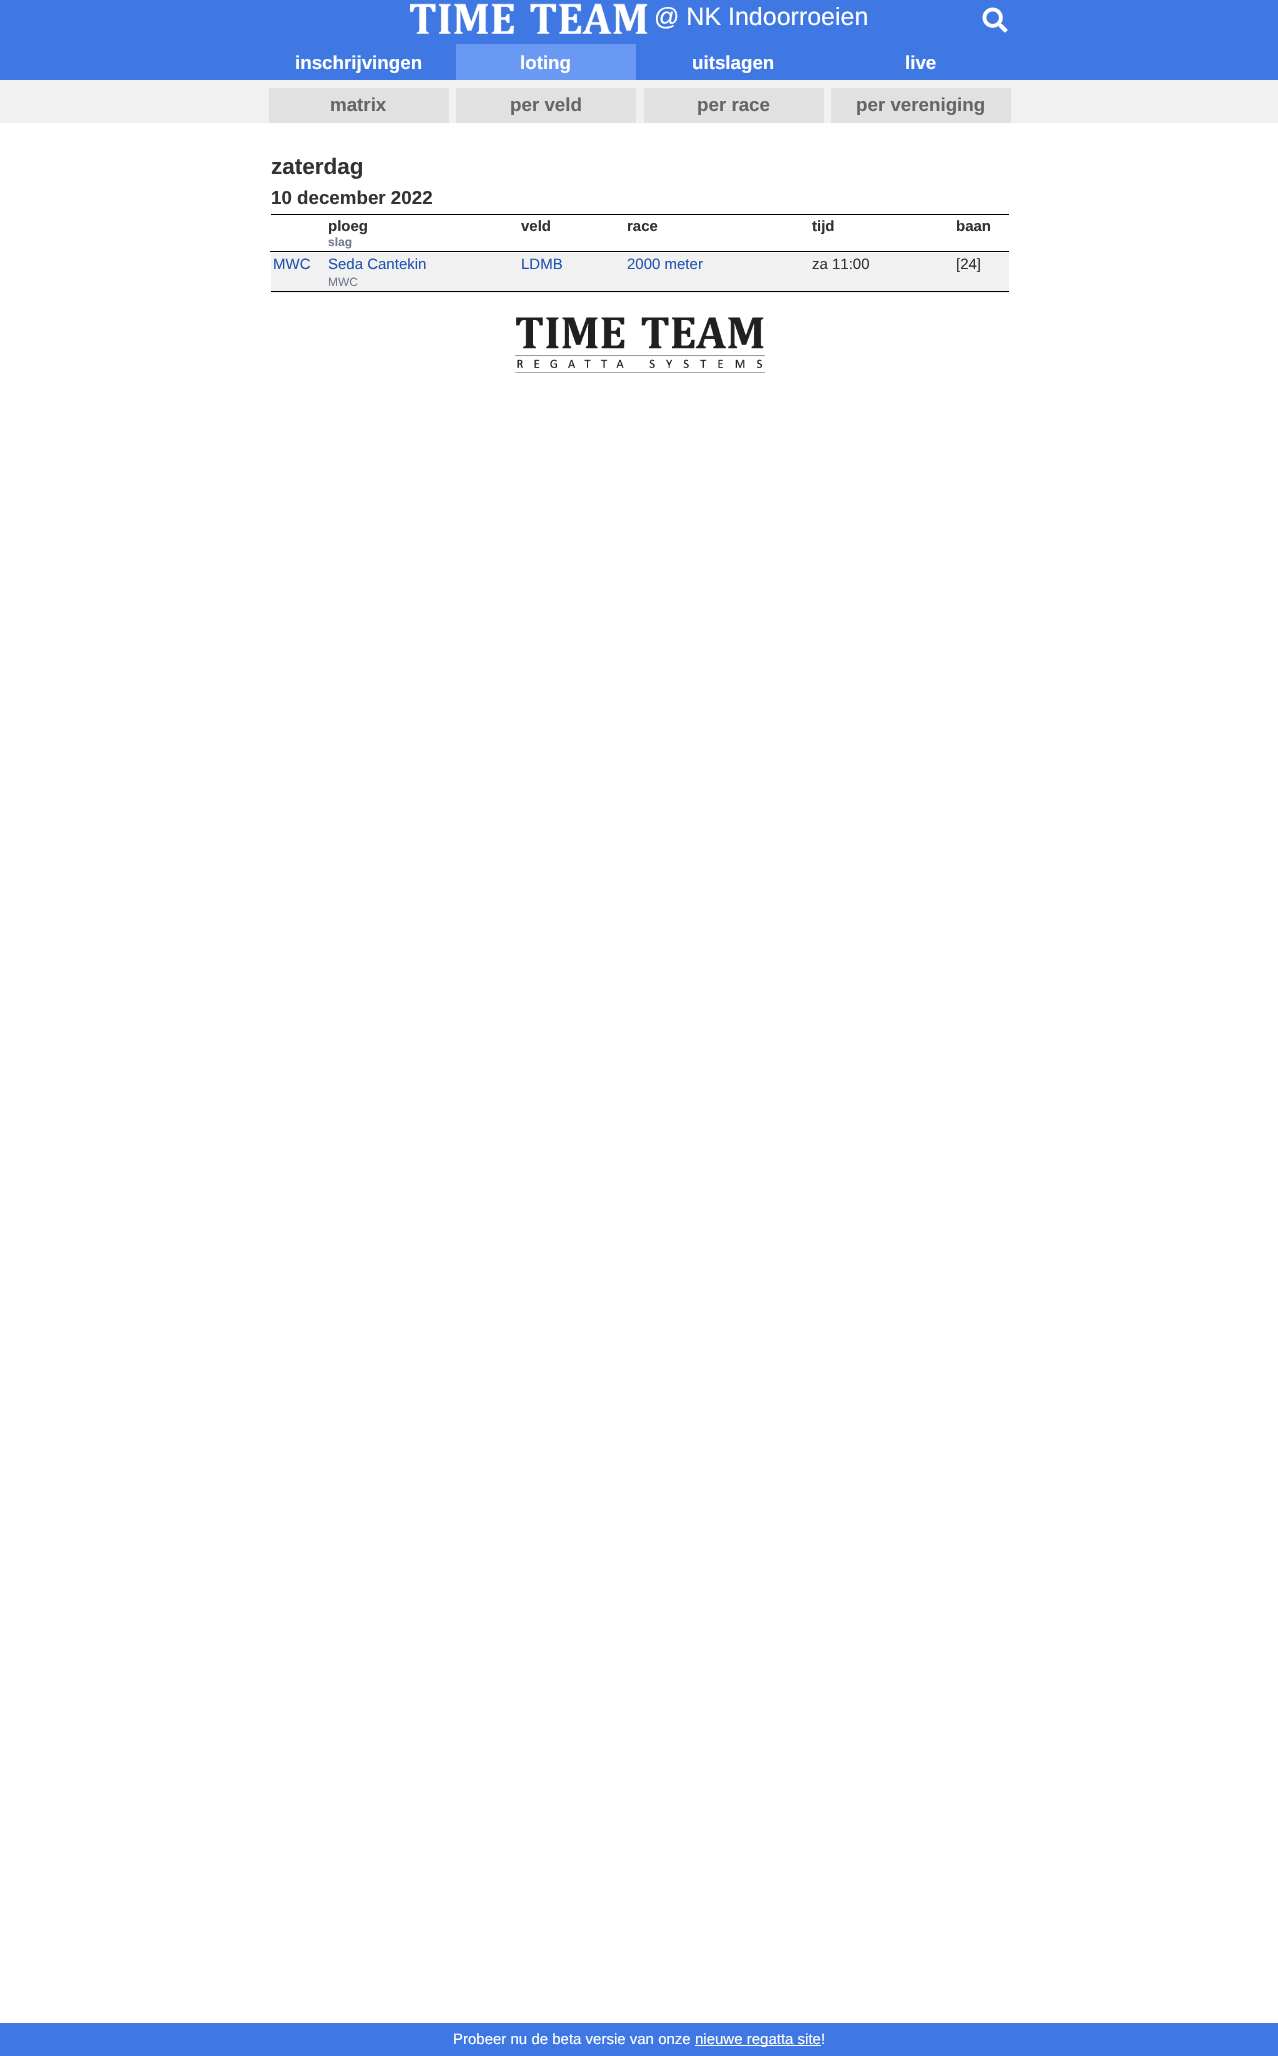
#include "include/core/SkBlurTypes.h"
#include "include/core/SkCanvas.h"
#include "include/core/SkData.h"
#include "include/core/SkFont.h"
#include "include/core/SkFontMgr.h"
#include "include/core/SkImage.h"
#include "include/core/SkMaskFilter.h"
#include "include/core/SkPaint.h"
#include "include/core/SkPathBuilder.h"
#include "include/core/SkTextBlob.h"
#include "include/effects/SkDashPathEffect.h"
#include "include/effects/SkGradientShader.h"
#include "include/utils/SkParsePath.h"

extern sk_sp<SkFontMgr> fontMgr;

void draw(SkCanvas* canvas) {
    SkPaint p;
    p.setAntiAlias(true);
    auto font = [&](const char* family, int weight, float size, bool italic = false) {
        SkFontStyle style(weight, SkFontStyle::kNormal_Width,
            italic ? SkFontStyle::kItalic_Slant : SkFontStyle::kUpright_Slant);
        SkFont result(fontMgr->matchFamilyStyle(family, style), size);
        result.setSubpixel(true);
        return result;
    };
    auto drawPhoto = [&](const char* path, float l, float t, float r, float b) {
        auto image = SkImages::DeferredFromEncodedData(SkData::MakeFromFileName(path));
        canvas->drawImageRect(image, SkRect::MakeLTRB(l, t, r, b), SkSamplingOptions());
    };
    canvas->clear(0xFFFFFFFF);
    p.setColor(0xFF3F78E3);
    canvas->drawRect(SkRect::MakeLTRB(0, 0, 1278, 80), p);
    drawPhoto("media/1.png", 410, 3, 648, 34);
    auto font1 = font("Liberation Sans", 400, 25);
    p.setColor(0xFFFFFFFF);
    canvas->drawString("@ NK Indoorroeien", 654, 25, font1, p);
    drawPhoto("media/2.png", 982, 7, 1008, 33);
    auto font2 = font("Liberation Sans", 700, 18.75f);
    canvas->drawString("inschrijvingen", 295, 69, font2, p);
    p.setColor(0xFF6A99F3);
    canvas->drawRect(SkRect::MakeLTRB(456, 44, 636, 80), p);
    p.setColor(0xFFFFFFFF);
    {
        const struct { const char* s; float x, y; } items[] = {
            {"loting", 520, 69},
            {"uitslagen", 692, 69},
            {"live", 905, 69},
        };
        for (auto [s, x, y] : items) {
            canvas->drawString(s, x, y, font2, p);
        }
    }
    p.setColor(0xFFF1F1F1);
    canvas->drawRect(SkRect::MakeLTRB(0, 80, 1278, 123), p);
    p.setColor(0xFFE1E1E1);
    canvas->drawRect(SkRect::MakeLTRB(269, 88, 449, 123), p);
    p.setColor(0xFF666666);
    canvas->drawString("matrix", 330, 111, font2, p);
    p.setColor(0xFFE1E1E1);
    canvas->drawRect(SkRect::MakeLTRB(456, 88, 636, 123), p);
    p.setColor(0xFF666666);
    canvas->drawString("per veld", 510, 111, font2, p);
    p.setColor(0xFFE1E1E1);
    canvas->drawRect(SkRect::MakeLTRB(644, 88, 824, 123), p);
    p.setColor(0xFF666666);
    canvas->drawString("per race", 697, 111, font2, p);
    p.setColor(0xFFE1E1E1);
    canvas->drawRect(SkRect::MakeLTRB(831, 88, 1011, 123), p);
    p.setColor(0xFF666666);
    canvas->drawString("per vereniging", 856, 111, font2, p);
    auto font3 = font("Liberation Sans", 700, 22.5f);
    p.setColor(0xFF333333);
    canvas->drawString("zaterdag", 271, 174, font3, p);
    canvas->drawString("10 december 2022", 271, 204, font2, p);
    {
        const struct { float l, t, r, b; SkColor color; } items[] = {
            {271, 214, 1009, 215, 0xFF000000},
            {271, 275, 1009, 293, 0xFFF1F1F1},
            {271, 291, 1009, 292, 0xFF000000},
        };
        for (auto [l, t, r, b, color] : items) {
            p.setColor(color);
            canvas->drawRect(SkRect::MakeLTRB(l, t, r, b), p);
        }
    }
    auto font4 = font("Liberation Sans", 700, 15);
    p.setColor(0xFF333333);
    canvas->drawString("ploeg", 328, 231, font4, p);
    auto font5 = font("Liberation Sans", 700, 12);
    p.setColor(0xFF6D7B8D);
    canvas->drawString("slag", 328, 246, font5, p);
    p.setColor(0xFF333333);
    {
        const struct { const char* s; float x, y; } items[] = {
            {"veld", 521, 231},
            {"race", 627, 231},
            {"tijd", 812, 231},
        };
        for (auto [s, x, y] : items) {
            canvas->drawString(s, x, y, font4, p);
        }
    }
    p.setColor(0xFF000000);
    canvas->drawRect(SkRect::MakeLTRB(270, 251, 1009, 252), p);
    p.setColor(0xFF333333);
    canvas->drawString("baan", 956, 231, font4, p);
    p.setColor(0xFFF1F1F1);
    canvas->drawRect(SkRect::MakeLTRB(271, 253, 1009, 275), p);
    auto font6 = font("Liberation Sans", 400, 15);
    p.setColor(0xFF2254B1);
    {
        const struct { const char* s; float x, y; } items[] = {
            {"MWC", 273, 269},
            {"Seda Cantekin", 328, 269},
            {"LDMB", 521, 269},
            {"2000 meter", 627, 269},
        };
        for (auto [s, x, y] : items) {
            canvas->drawString(s, x, y, font6, p);
        }
    }
    p.setColor(0xFF333333);
    canvas->drawString("za 11:00", 812, 269, font6, p);
    canvas->drawString("[24]", 956, 269, font6, p);
    auto font7 = font("Liberation Sans", 400, 12);
    p.setColor(0xFF6D7B8D);
    canvas->drawString("MWC", 328, 286, font7, p);
    drawPhoto("media/3.png", 515, 317, 765, 373);
    p.setColor(0xFF3F78E3);
    canvas->drawRect(SkRect::MakeLTRB(0, 2023, 1278, 2056), p);
    p.setColor(0xFFFFFFFF);
    canvas->drawString("Probeer nu de beta versie van onze", 453, 2044, font6, p);
    canvas->drawRect(SkRect::MakeLTRB(695, 2045, 821, 2046), p);
    canvas->drawString("nieuwe regatta site!", 695, 2044, font6, p);
}
